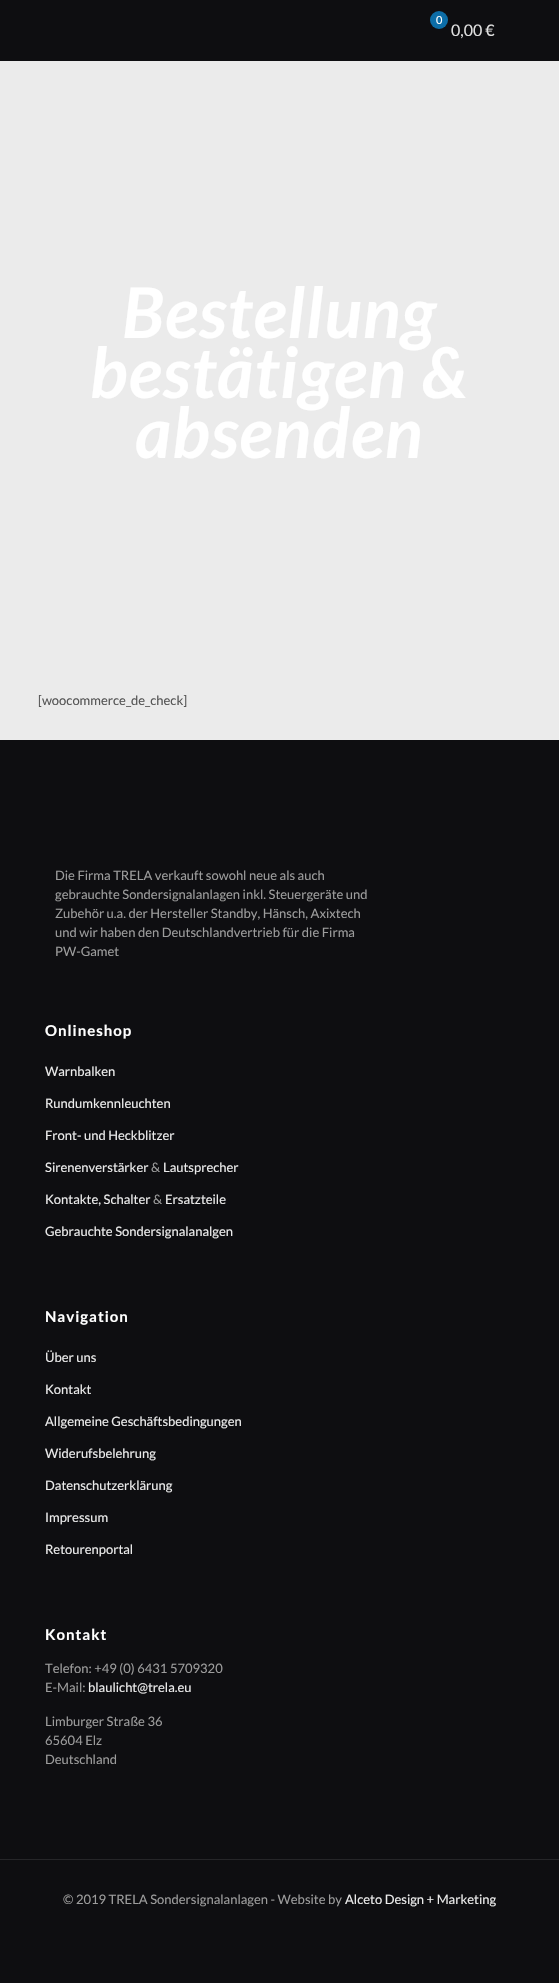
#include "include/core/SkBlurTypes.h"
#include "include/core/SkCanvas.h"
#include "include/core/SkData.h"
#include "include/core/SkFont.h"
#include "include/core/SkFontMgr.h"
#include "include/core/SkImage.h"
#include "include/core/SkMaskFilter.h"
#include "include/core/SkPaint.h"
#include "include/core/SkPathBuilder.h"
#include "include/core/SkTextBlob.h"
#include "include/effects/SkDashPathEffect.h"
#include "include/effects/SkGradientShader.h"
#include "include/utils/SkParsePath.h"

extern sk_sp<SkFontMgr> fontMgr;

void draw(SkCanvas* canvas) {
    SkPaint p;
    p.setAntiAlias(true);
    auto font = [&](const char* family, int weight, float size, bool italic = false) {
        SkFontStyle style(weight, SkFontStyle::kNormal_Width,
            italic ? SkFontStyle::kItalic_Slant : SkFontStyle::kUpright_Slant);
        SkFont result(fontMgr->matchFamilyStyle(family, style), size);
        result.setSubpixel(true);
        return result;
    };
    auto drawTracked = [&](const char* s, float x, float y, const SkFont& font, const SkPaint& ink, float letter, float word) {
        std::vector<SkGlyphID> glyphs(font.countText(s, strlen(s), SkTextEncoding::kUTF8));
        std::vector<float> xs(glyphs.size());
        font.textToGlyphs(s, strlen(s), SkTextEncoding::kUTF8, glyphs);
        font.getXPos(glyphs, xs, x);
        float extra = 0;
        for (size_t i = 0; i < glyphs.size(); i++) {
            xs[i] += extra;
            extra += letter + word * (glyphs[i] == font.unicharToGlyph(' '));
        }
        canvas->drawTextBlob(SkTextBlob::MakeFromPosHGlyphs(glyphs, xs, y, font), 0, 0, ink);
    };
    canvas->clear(0xFFEBEBEB);
    p.setColor(0xFF0E0E11);
    canvas->drawRect(SkRect::MakeLTRB(0, 0, 559, 61), p);
    p.setColor(0xFF0C6DA7);
    canvas->drawCircle(439, 20, 9, p);
    auto font1 = font("Lato", 400, 11);
    p.setColor(0xFFFFFFFF);
    canvas->drawString("0", 436, 24, font1, p);
    auto font2 = font("Lato", 400, 16);
    p.setColor(0xFFDFDFDF);
    canvas->drawString("0,00 €", 451, 36, font2, p);
    auto font3 = font("Lato", 700, 70, true);
    p.setColor(0xFFFFFFFF);
    {
        const struct { const char* s; float x, y; } items[] = {
            {"Bestellung", 122, 338},
            {"bestätigen &", 90, 398},
            {"absenden", 135, 458},
        };
        for (auto [s, x, y] : items) {
            drawTracked(s, x, y, font3, p, 1, 0);
        }
    }
    auto font4 = font("Lato", 400, 13);
    p.setColor(0xFF555555);
    canvas->drawString("[woocommerce_de_check]", 38, 705, font4, p);
    p.setColor(0xFF0E0E11);
    canvas->drawRect(SkRect::MakeLTRB(0, 740, 559, 1983), p);
    p.setColor(0xFF9C9C9C);
    {
        const struct { const char* s; float x, y; } items[] = {
            {"Die Firma TRELA verkauft sowohl neue als auch", 55, 880},
            {"gebrauchte Sondersignalanlagen inkl. Steuergeräte und", 55, 899},
            {"Zubehör u.a. der Hersteller Standby, Hänsch, Axixtech", 55, 918},
            {"und wir haben den Deutschlandvertrieb für die Firma", 55, 937},
            {"PW-Gamet", 55, 956},
        };
        for (auto [s, x, y] : items) {
            canvas->drawString(s, x, y, font4, p);
        }
    }
    auto font5 = font("Lato", 700, 15);
    p.setColor(0xFFFFFFFF);
    drawTracked("Onlineshop", 45, 1036, font5, p, 1, 0);
    p.setColor(0xFFEBEBEB);
    {
        const struct { const char* s; float x, y; } items[] = {
            {"Warnbalken", 45, 1076},
            {"Rundumkennleuchten", 45, 1108},
            {"Front- und Heckblitzer", 45, 1140},
            {"Sirenenverstärker", 45, 1172},
        };
        for (auto [s, x, y] : items) {
            canvas->drawString(s, x, y, font4, p);
        }
    }
    p.setColor(0xFF9C9C9C);
    canvas->drawString("&", 151, 1172, font4, p);
    p.setColor(0xFFEBEBEB);
    canvas->drawString("Lautsprecher", 163, 1172, font4, p);
    canvas->drawString("Kontakte, Schalter", 45, 1204, font4, p);
    p.setColor(0xFF9C9C9C);
    canvas->drawString("&", 153, 1204, font4, p);
    p.setColor(0xFFEBEBEB);
    canvas->drawString("Ersatzteile", 165, 1204, font4, p);
    canvas->drawString("Gebrauchte Sondersignalanalgen", 45, 1236, font4, p);
    p.setColor(0xFFFFFFFF);
    drawTracked("Navigation", 45, 1322, font5, p, 1, 0);
    p.setColor(0xFFEBEBEB);
    {
        const struct { const char* s; float x, y; } items[] = {
            {"Über uns", 45, 1362},
            {"Kontakt", 45, 1394},
            {"Allgemeine Geschäftsbedingungen", 45, 1426},
            {"Widerufsbelehrung", 45, 1458},
            {"Datenschutzerklärung", 45, 1490},
            {"Impressum", 45, 1522},
            {"Retourenportal", 45, 1554},
        };
        for (auto [s, x, y] : items) {
            canvas->drawString(s, x, y, font4, p);
        }
    }
    p.setColor(0xFFFFFFFF);
    drawTracked("Kontakt", 45, 1640, font5, p, 1, 0);
    p.setColor(0xFF9C9C9C);
    canvas->drawString("Telefon: +49 (0) 6431 5709320", 45, 1673, font4, p);
    canvas->drawString("E-Mail:", 45, 1692, font4, p);
    p.setColor(0xFFEBEBEB);
    canvas->drawString("blaulicht@trela.eu", 88, 1692, font4, p);
    p.setColor(0xFF9C9C9C);
    {
        const struct { const char* s; float x, y; } items[] = {
            {"Limburger Straße 36", 45, 1726},
            {"65604 Elz", 45, 1745},
            {"Deutschland", 45, 1764},
        };
        for (auto [s, x, y] : items) {
            canvas->drawString(s, x, y, font4, p);
        }
    }
    p.setColor(0xFF262629);
    canvas->drawRect(SkRect::MakeLTRB(0, 1859, 559, 1860), p);
    p.setColor(0xFF9C9C9C);
    canvas->drawString("© 2019 TRELA Sondersignalanlagen - Website by", 63, 1904, font4, p);
    p.setColor(0xFFEBEBEB);
    canvas->drawString("Alceto Design + Marketing", 345, 1904, font4, p);
}
